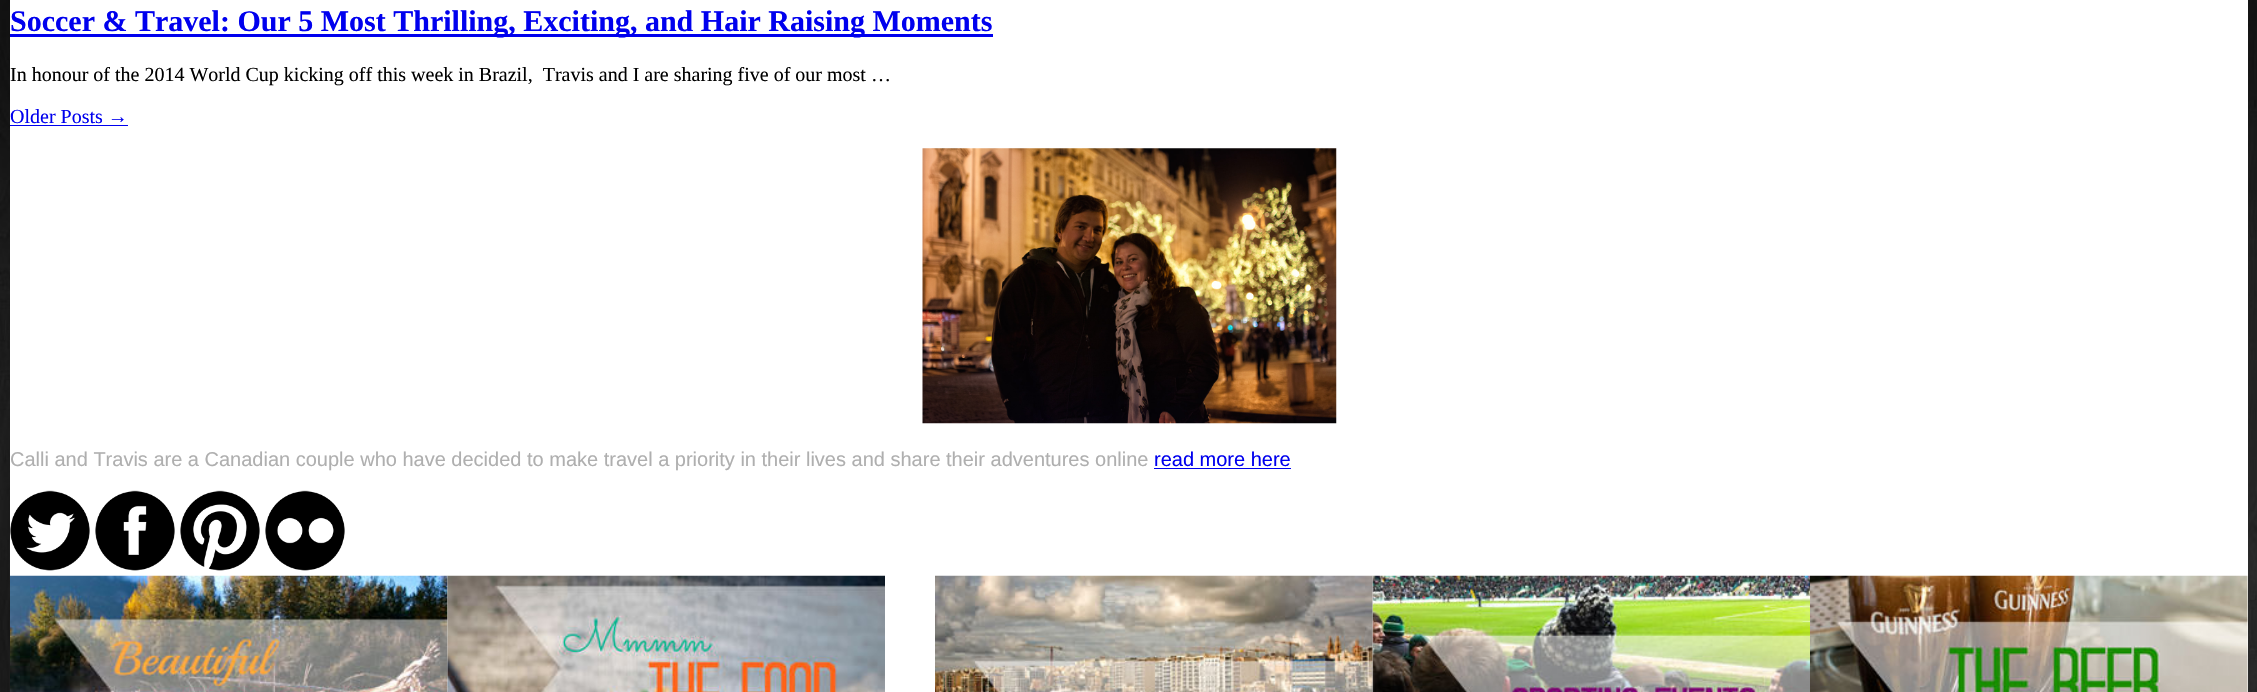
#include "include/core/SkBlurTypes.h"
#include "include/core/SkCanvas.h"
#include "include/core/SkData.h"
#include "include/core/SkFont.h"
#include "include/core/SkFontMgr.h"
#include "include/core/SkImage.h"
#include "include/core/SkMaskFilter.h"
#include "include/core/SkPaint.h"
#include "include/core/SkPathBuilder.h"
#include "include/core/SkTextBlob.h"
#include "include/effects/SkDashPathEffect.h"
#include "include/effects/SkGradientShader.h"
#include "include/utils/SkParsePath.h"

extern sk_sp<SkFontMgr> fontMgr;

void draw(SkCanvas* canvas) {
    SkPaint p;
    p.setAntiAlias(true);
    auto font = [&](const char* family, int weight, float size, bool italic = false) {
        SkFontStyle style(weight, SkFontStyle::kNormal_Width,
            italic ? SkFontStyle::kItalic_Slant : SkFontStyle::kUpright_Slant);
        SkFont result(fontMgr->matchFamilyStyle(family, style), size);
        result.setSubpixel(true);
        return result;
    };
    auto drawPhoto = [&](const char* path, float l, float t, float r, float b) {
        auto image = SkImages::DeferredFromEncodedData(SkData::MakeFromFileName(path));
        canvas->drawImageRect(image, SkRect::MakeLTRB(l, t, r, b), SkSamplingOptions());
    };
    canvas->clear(0xFFFFFFFF);
    drawPhoto("media/1.png", 0, 0, 2257, 692);
    p.setColor(0xFFFFFFFF);
    canvas->drawRect(SkRect::MakeLTRB(10, 0, 2248, 692), p);
    p.setColor(0xFF0000EE);
    canvas->drawRect(SkRect::MakeLTRB(10, 34, 993, 37), p);
    auto font1 = font("Liberation Serif", 700, 30);
    canvas->drawString("Soccer & Travel: Our 5 Most Thrilling, Exciting, and Hair Raising Moments", 10, 31, font1, p);
    auto font2 = font("Liberation Serif", 400, 20);
    p.setColor(0xFF000000);
    canvas->drawString("In honour of the 2014 World Cup kicking off this week in Brazil,  Travis and I are sharing five of our most …", 10, 81, font2, p);
    p.setColor(0xFF0000EE);
    canvas->drawString("Older Posts →", 10, 123, font2, p);
    canvas->drawRect(SkRect::MakeLTRB(10, 125, 128, 126), p);
    drawPhoto("media/2.png", 922, 148, 1337, 424);
    auto font3 = font("Liberation Sans", 400, 20);
    p.setColor(0xFFAFAFAF);
    canvas->drawString("Calli and Travis are a Canadian couple who have decided to make travel a priority in their lives and share their adventures online", 10, 466, font3, p);
    p.setColor(0xFF0000EE);
    canvas->drawString("read more here", 1154, 466, font3, p);
    canvas->drawRect(SkRect::MakeLTRB(1154, 468, 1291, 469), p);
    drawPhoto("media/3.png", 10, 490, 90, 571);
    drawPhoto("media/4.png", 95, 490, 175, 571);
    drawPhoto("media/5.png", 180, 490, 260, 571);
    drawPhoto("media/6.png", 265, 490, 345, 571);
    drawPhoto("media/7.png", 10, 575, 448, 692);
    drawPhoto("media/8.png", 447, 575, 885, 692);
    drawPhoto("media/10.png", 1372, 575, 1810, 692);
    drawPhoto("media/9.png", 935, 575, 1373, 692);
    drawPhoto("media/11.png", 1810, 575, 2248, 692);
}
